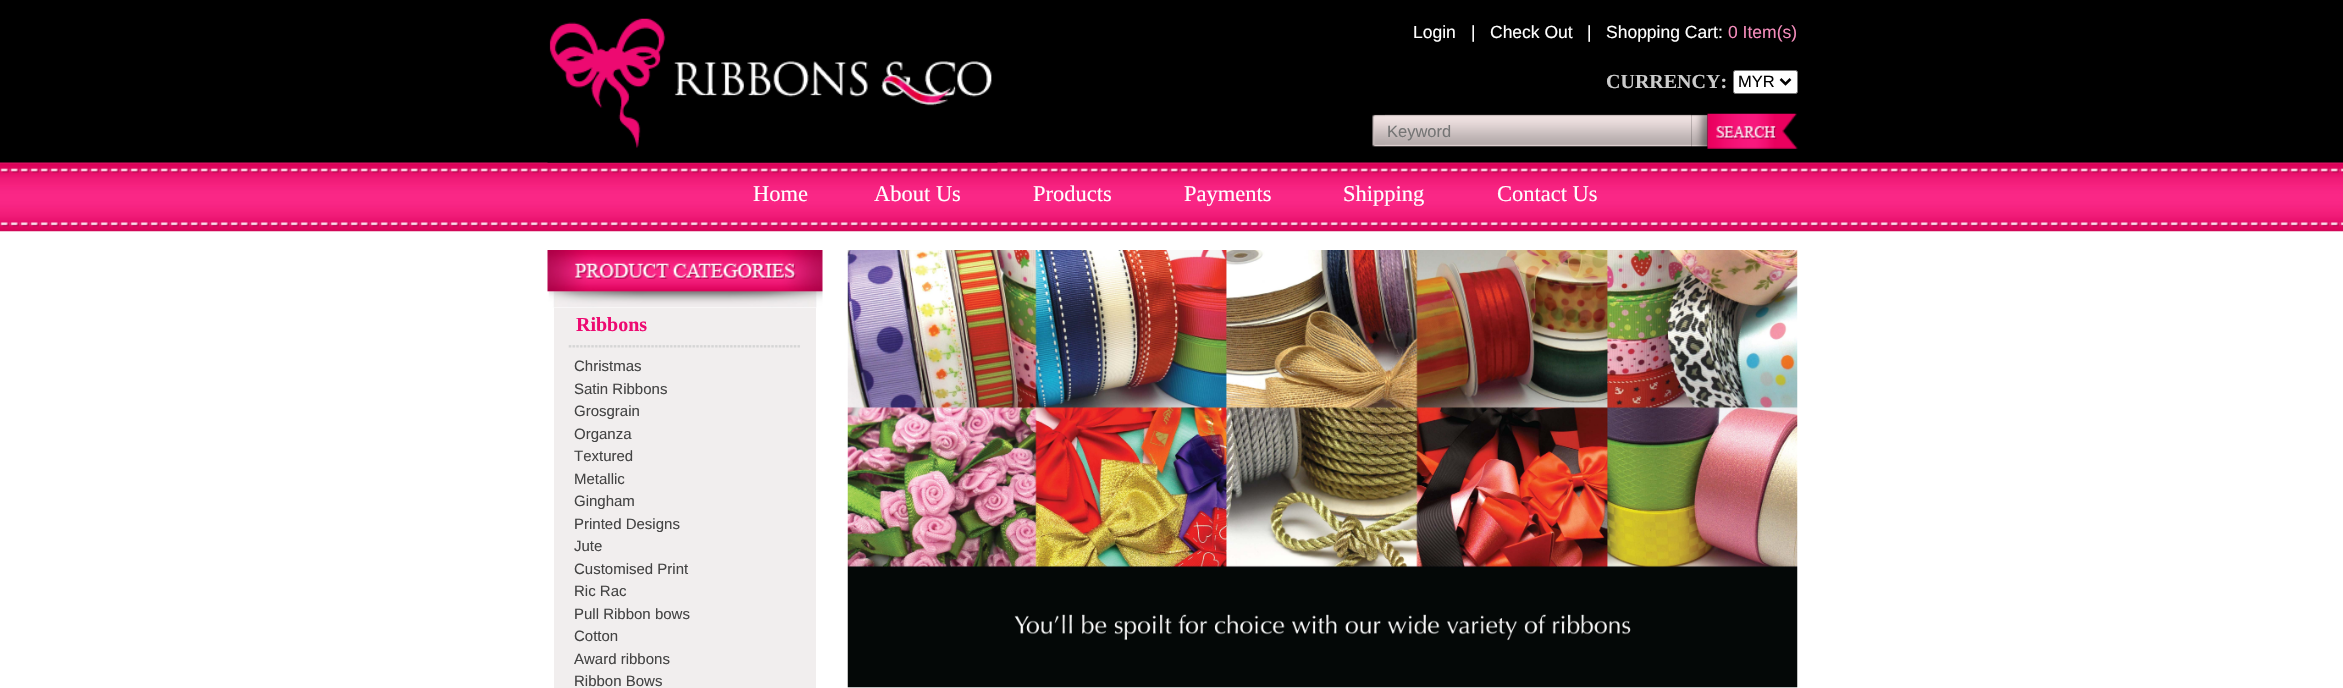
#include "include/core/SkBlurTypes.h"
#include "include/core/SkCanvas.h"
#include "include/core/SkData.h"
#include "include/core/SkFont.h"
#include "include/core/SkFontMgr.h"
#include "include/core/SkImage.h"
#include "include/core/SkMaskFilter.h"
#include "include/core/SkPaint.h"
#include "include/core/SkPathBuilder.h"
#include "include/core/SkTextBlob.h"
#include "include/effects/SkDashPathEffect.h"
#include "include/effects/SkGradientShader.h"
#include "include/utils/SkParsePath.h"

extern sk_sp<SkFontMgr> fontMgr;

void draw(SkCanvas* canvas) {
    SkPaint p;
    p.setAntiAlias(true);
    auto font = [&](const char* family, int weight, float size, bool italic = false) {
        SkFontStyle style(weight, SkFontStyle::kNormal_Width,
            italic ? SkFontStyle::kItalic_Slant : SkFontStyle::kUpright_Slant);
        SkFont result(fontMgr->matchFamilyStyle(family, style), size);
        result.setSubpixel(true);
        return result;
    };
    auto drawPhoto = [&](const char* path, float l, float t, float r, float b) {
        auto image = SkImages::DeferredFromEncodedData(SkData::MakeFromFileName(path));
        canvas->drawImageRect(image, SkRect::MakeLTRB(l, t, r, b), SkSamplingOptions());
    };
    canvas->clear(0xFFFFFFFF);
    p.setColor(0xFF000000);
    canvas->drawRect(SkRect::MakeLTRB(0, 0, 2343, 163), p);
    drawPhoto("media/6.png", 0, 162, 2343, 232);
    drawPhoto("media/1.png", 547, 18, 998, 163);
    auto font1 = font("Liberation Sans", 400, 17.5f);
    p.setColor(0xFFFFFFFF);
    {
        const struct { const char* s; float x, y; } items[] = {
            {"Login", 1413, 38},
            {"|", 1471, 38},
            {"Check Out", 1490, 38},
            {"|", 1587, 38},
            {"Shopping Cart:", 1606, 38},
        };
        for (auto [s, x, y] : items) {
            canvas->drawString(s, x, y, font1, p);
        }
    }
    p.setColor(0xFFF48CBB);
    canvas->drawString("0 Item(s)", 1728, 38, font1, p);
    auto font2 = font("Liberation Serif", 700, 20);
    p.setColor(0xFFCCCCCC);
    canvas->drawString("CURRENCY:", 1606, 88, font2, p);
    p.setColor(0xFFFFFFFF);
    canvas->drawRoundRect(SkRect::MakeLTRB(1733.5f, 70.5f, 1797.5f, 93.5f), 2, 2, p);
    p.setStyle(SkPaint::kStroke_Style);
    p.setStrokeWidth(1);
    p.setColor(0xFF767676);
    canvas->drawRoundRect(SkRect::MakeLTRB(1733.5f, 70.5f, 1797.5f, 93.5f), 2, 2, p);
    p.setStrokeWidth(2.5f);
    p.setColor(0xFF000000);
    canvas->drawPath(SkPathBuilder().moveTo(1780.5f, 79).lineTo(1785.5f, 84).lineTo(1790.5f, 79).detach(), p);
    auto font3 = font("Liberation Sans", 400, 16.5f);
    p.setStyle(SkPaint::kFill_Style);
    canvas->drawString("MYR", 1738, 87, font3, p);
    drawPhoto("media/2.png", 1372, 114, 1385, 147);
    drawPhoto("media/3.png", 1385, 114, 1692, 147);
    p.setColor(0xFF757575);
    canvas->drawString("Keyword", 1387, 137, font3, p);
    drawPhoto("media/4.png", 1691, 114, 1708, 147);
    drawPhoto("media/5.png", 1707, 113, 1798, 149);
    auto font4 = font("Liberation Serif", 400, 22.5f);
    p.setColor(0xFFFFFFFF);
    {
        const struct { const char* s; float x, y; } items[] = {
            {"Home", 753, 201},
            {"About Us", 874, 201},
            {"Products", 1033, 201},
            {"Payments", 1184, 201},
            {"Shipping", 1343, 201},
            {"Contact Us", 1497, 201},
        };
        for (auto [s, x, y] : items) {
            canvas->drawString(s, x, y, font4, p);
        }
    }
    drawPhoto("media/7.png", 547, 250, 823, 308);
    p.setColor(0xFFF1EEEE);
    canvas->drawRect(SkRect::MakeLTRB(554, 308, 816, 688), p);
    p.setColor(0xFFED0A71);
    canvas->drawString("Ribbons", 576, 331, font2, p);
    drawPhoto("media/8.png", 568, 345, 800, 348);
    auto font5 = font("Liberation Sans", 400, 15);
    p.setColor(0xFF444444);
    {
        const struct { const char* s; float x, y; } items[] = {
            {"Christmas", 574, 371},
            {"Satin Ribbons", 574, 394},
            {"Grosgrain", 574, 416},
            {"Organza", 574, 439},
            {"Textured", 574, 461},
            {"Metallic", 574, 484},
            {"Gingham", 574, 506},
            {"Printed Designs", 574, 529},
            {"Jute", 574, 551},
            {"Customised Print", 574, 574},
            {"Ric Rac", 574, 596},
            {"Pull Ribbon bows", 574, 619},
            {"Cotton", 574, 641},
            {"Award ribbons", 574, 664},
            {"Ribbon Bows", 574, 686},
        };
        for (auto [s, x, y] : items) {
            canvas->drawString(s, x, y, font5, p);
        }
    }
    drawPhoto("media/9.png", 847, 250, 1798, 688);
}
